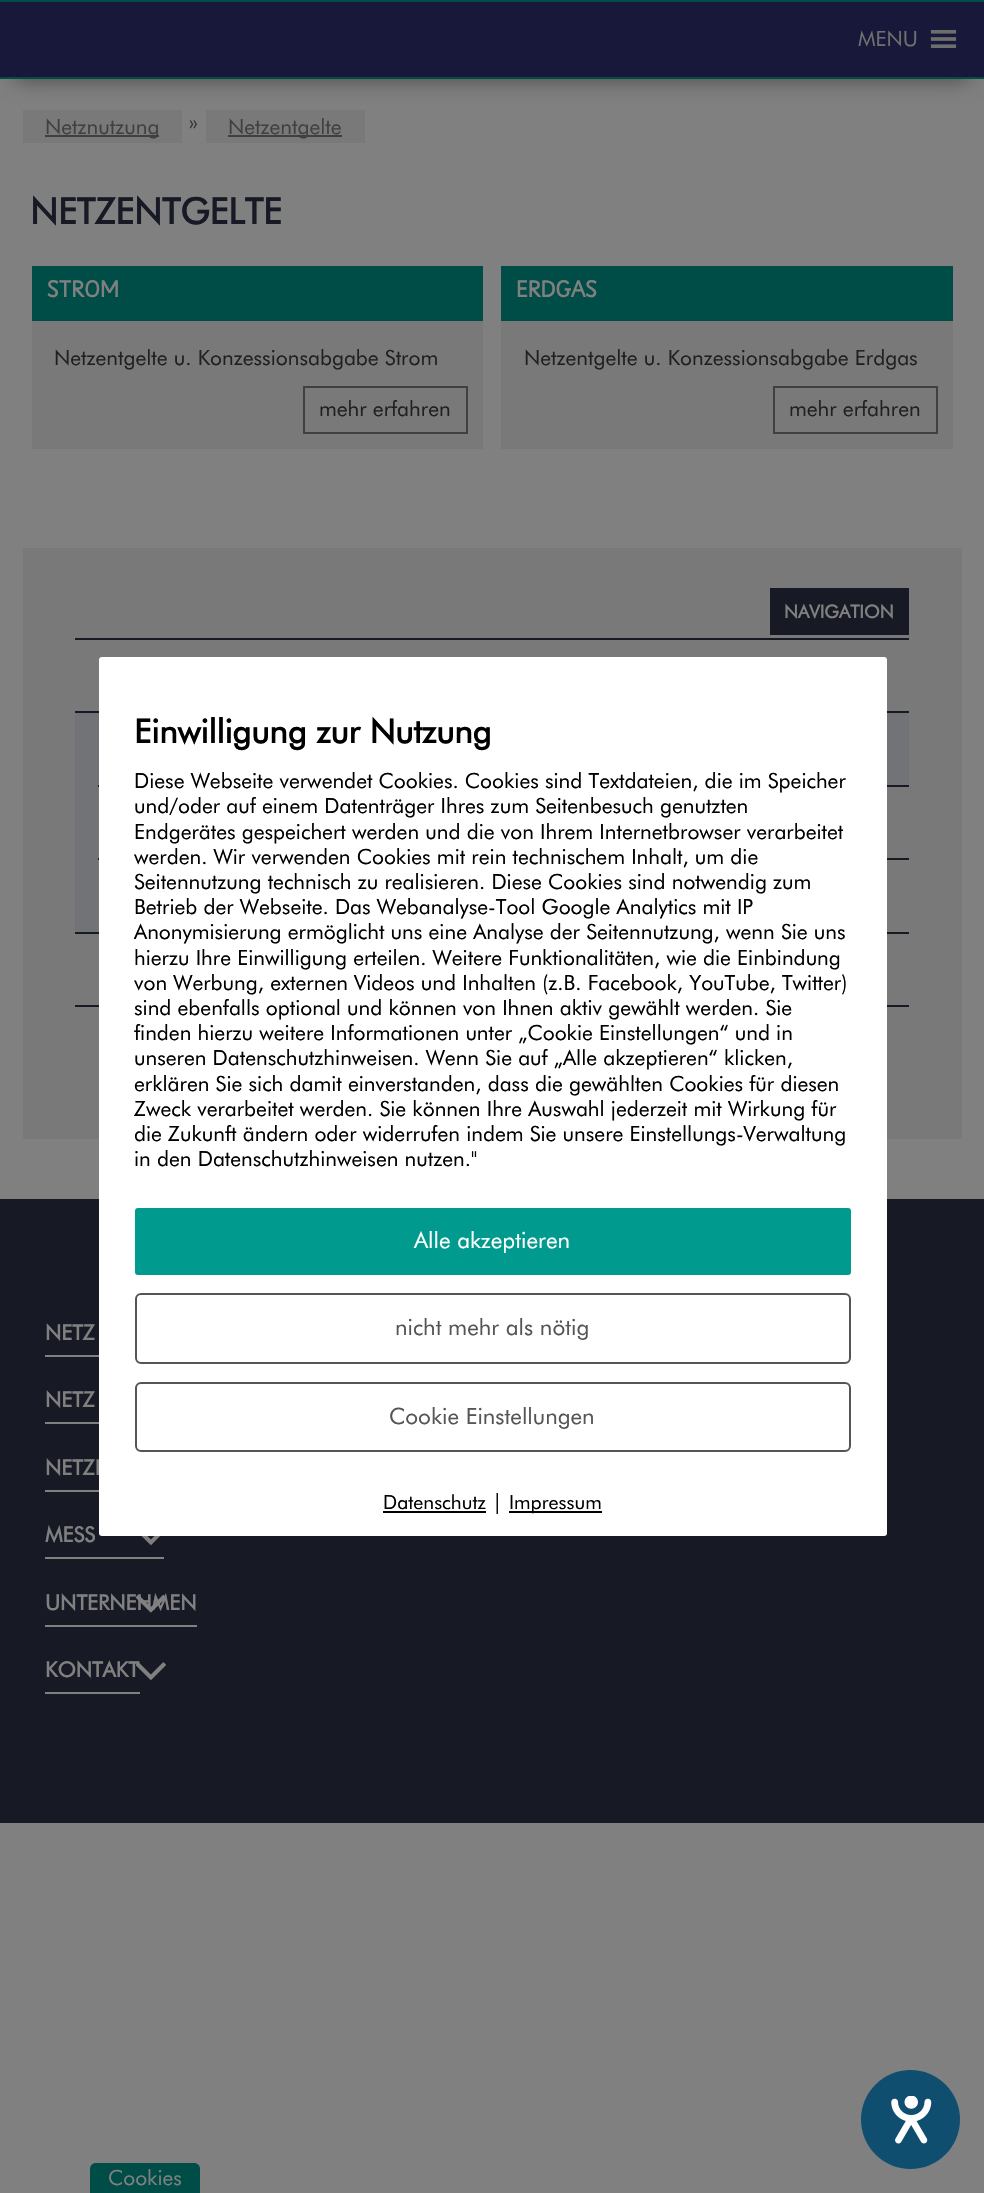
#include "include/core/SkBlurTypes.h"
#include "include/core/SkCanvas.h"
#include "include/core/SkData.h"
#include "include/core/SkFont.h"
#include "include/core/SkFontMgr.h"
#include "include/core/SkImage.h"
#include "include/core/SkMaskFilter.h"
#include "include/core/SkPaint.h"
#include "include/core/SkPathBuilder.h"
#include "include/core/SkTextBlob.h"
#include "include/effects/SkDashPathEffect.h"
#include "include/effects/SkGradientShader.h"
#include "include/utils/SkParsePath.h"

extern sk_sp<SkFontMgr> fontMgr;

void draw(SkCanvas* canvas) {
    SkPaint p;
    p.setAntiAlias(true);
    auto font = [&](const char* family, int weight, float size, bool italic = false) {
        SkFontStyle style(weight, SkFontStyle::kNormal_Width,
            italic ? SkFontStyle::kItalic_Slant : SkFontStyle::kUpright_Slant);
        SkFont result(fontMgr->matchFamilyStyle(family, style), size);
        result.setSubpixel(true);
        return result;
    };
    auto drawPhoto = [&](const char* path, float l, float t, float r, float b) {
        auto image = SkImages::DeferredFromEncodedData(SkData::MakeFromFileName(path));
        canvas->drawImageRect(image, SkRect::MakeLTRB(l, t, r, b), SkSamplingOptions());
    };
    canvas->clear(0xFF808080);
    p.setColor(0xFF797979);
    canvas->drawRect(SkRect::MakeLTRB(23, 110, 182, 143), p);
    canvas->drawRect(SkRect::MakeLTRB(206, 110, 365, 143), p);
    p.setColor(0x80000000);
    p.setMaskFilter(SkMaskFilter::MakeBlur(kNormal_SkBlurStyle, 11));
    canvas->drawRect(SkRect::MakeLTRB(15, 30, 969, 78), p);
    p.setMaskFilter(nullptr);
    {
        const struct { float l, t, r, b; SkColor color; } items[] = {
            {0, 0, 984, 2, 0xFF004D48},
            {0, 77, 984, 79, 0xFF004D48},
            {0, 2, 984, 77, 0xFF18183B},
        };
        for (auto [l, t, r, b, color] : items) {
            p.setColor(color);
            canvas->drawRect(SkRect::MakeLTRB(l, t, r, b), p);
        }
    }
    auto font1 = font("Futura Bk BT", 400, 21);
    p.setColor(0xFF6F6F6F);
    canvas->drawString("MENU", 858, 46, font1, p);
    drawPhoto("media/1.png", 930, 30, 957, 48);
    p.setColor(0xFF404040);
    canvas->drawRect(SkRect::MakeLTRB(45, 135, 159, 137), p);
    canvas->drawString("Netznutzung", 45, 134, font1, p);
    p.setColor(0xFF353535);
    canvas->drawString("»", 189, 129, font1, p);
    p.setColor(0xFF404040);
    canvas->drawRect(SkRect::MakeLTRB(228, 135, 342, 137), p);
    canvas->drawString("Netzentgelte", 228, 134, font1, p);
    auto font2 = font("Futura Bk BT", 700, 36);
    p.setColor(0xFF171A24);
    canvas->drawString("NETZENTGELTE", 30, 224, font2, p);
    p.setColor(0xFF797979);
    canvas->drawRect(SkRect::MakeLTRB(32, 321, 483, 449), p);
    p.setColor(0xFF004D48);
    canvas->drawRect(SkRect::MakeLTRB(32, 266, 483, 321), p);
    auto font3 = font("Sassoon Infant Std", 700, 23);
    p.setColor(0xFF808080);
    canvas->drawString("STROM", 47, 297, font3, p);
    p.setColor(0xFF202020);
    canvas->drawString("Netzentgelte u. Konzessionsabgabe Strom", 54, 365, font1, p);
    p.setStyle(SkPaint::kStroke_Style);
    p.setStrokeWidth(2);
    p.setColor(0xFF404040);
    canvas->drawRect(SkRect::MakeLTRB(304, 387, 467, 433), p);
    p.setStyle(SkPaint::kFill_Style);
    p.setColor(0xFF202020);
    canvas->drawString("mehr erfahren", 319, 416, font1, p);
    p.setColor(0xFF797979);
    canvas->drawRect(SkRect::MakeLTRB(501, 321, 953, 449), p);
    p.setColor(0xFF004D48);
    canvas->drawRect(SkRect::MakeLTRB(501, 266, 953, 321), p);
    p.setColor(0xFF808080);
    canvas->drawString("ERDGAS", 516, 297, font3, p);
    p.setColor(0xFF202020);
    canvas->drawString("Netzentgelte u. Konzessionsabgabe Erdgas", 524, 365, font1, p);
    p.setStyle(SkPaint::kStroke_Style);
    p.setColor(0xFF404040);
    canvas->drawRect(SkRect::MakeLTRB(774, 387, 937, 433), p);
    p.setStyle(SkPaint::kFill_Style);
    p.setColor(0xFF202020);
    canvas->drawString("mehr erfahren", 789, 416, font1, p);
    p.setColor(0xFF797979);
    canvas->drawRect(SkRect::MakeLTRB(23, 548, 962, 1139), p);
    p.setColor(0xFF171A24);
    canvas->drawRect(SkRect::MakeLTRB(770, 588, 909, 635), p);
    auto font4 = font("Futura Bk BT", 700, 18);
    p.setColor(0xFF808080);
    canvas->drawString("NAVIGATION", 784, 618, font4, p);
    {
        const struct { float l, t, r, b; SkColor color; } items[] = {
            {75, 638, 909, 640, 0xFF171A24},
            {75, 713, 909, 932, 0xFF727376},
            {75, 711, 909, 713, 0xFF171A24},
            {98, 787, 909, 858, 0xFF797979},
            {98, 785, 909, 787, 0xFF171A24},
            {98, 860, 909, 932, 0xFF797979},
            {98, 858, 909, 860, 0xFF171A24},
            {75, 932, 909, 934, 0xFF171A24},
            {75, 1005, 909, 1007, 0xFF171A24},
            {0, 1199, 984, 1823, 0xFF171A24},
            {45, 1355, 99, 1357, 0xFF808080},
        };
        for (auto [l, t, r, b, color] : items) {
            p.setColor(color);
            canvas->drawRect(SkRect::MakeLTRB(l, t, r, b), p);
        }
    }
    auto font5 = font("Futura Bk BT", 700, 21);
    canvas->drawString("NETZ", 45, 1340, font5, p);
    canvas->drawRect(SkRect::MakeLTRB(45, 1422, 99, 1424), p);
    canvas->drawString("NETZ", 45, 1407, font5, p);
    canvas->drawRect(SkRect::MakeLTRB(45, 1490, 99, 1492), p);
    canvas->drawString("NETZI", 45, 1475, font5, p);
    canvas->drawRect(SkRect::MakeLTRB(45, 1557, 164, 1559), p);
    canvas->drawString("MESS", 45, 1542, font5, p);
    drawPhoto("media/2.png", 141, 1536, 160, 1545);
    canvas->drawRect(SkRect::MakeLTRB(45, 1625, 197, 1627), p);
    canvas->drawString("UNTERNEHMEN", 45, 1610, font5, p);
    drawPhoto("media/3.png", 135, 1594, 165, 1613);
    canvas->drawRect(SkRect::MakeLTRB(45, 1692, 140, 1694), p);
    canvas->drawString("KONTAKT", 45, 1677, font5, p);
    drawPhoto("media/4.png", 135, 1662, 166, 1680);
    p.setColor(0xFFFFFFFF);
    canvas->drawRoundRect(SkRect::MakeLTRB(99, 657, 887, 1536), 3, 3, p);
    auto font6 = font("Futura Bk BT", 700, 33);
    p.setColor(0xFF000000);
    canvas->drawString("Einwilligung zur Nutzung", 134, 743, font6, p);
    {
        const struct { const char* s; float x, y; } items[] = {
            {"Diese Webseite verwendet Cookies. Cookies sind Textdateien, die im Speicher", 134, 788},
            {"und/oder auf einem Datenträger Ihres zum Seitenbesuch genutzten", 134, 813},
            {"Endgerätes gespeichert werden und die von Ihrem Internetbrowser verarbeitet", 134, 839},
            {"werden. Wir verwenden Cookies mit rein technischem Inhalt, um die", 134, 864},
            {"Seitennutzung technisch zu realisieren. Diese Cookies sind notwendig zum", 134, 889},
            {"Betrieb der Webseite. Das Webanalyse-Tool Google Analytics mit IP", 134, 914},
            {"Anonymisierung ermöglicht uns eine Analyse der Seitennutzung, wenn Sie uns", 134, 939},
            {"hierzu Ihre Einwilligung erteilen. Weitere Funktionalitäten, wie die Einbindung", 134, 965},
            {"von Werbung, externen Videos und Inhalten (z.B. Facebook, YouTube, Twitter)", 134, 990},
            {"sind ebenfalls optional und können von Ihnen aktiv gewählt werden. Sie", 134, 1015},
            {"finden hierzu weitere Informationen unter „Cookie Einstellungen“ und in", 134, 1040},
            {"unseren Datenschutzhinweisen. Wenn Sie auf „Alle akzeptieren“ klicken,", 134, 1065},
            {"erklären Sie sich damit einverstanden, dass die gewählten Cookies für diesen", 134, 1091},
            {"Zweck verarbeitet werden. Sie können Ihre Auswahl jederzeit mit Wirkung für", 134, 1116},
            {"die Zukunft ändern oder widerrufen indem Sie unsere Einstellungs-Verwaltung", 134, 1141},
            {"in den Datenschutzhinweisen nutzen.\"", 134, 1166},
        };
        for (auto [s, x, y] : items) {
            canvas->drawString(s, x, y, font1, p);
        }
    }
    p.setColor(0xFF009A8F);
    canvas->drawRoundRect(SkRect::MakeLTRB(135, 1208, 851, 1275), 3, 3, p);
    auto font7 = font("Futura Bk BT", 400, 22.5f);
    p.setColor(0xFFFFFFFF);
    canvas->drawString("Alle akzeptieren", 414, 1248, font7, p);
    p.setStyle(SkPaint::kStroke_Style);
    p.setColor(0xFF555555);
    canvas->drawRoundRect(SkRect::MakeLTRB(136, 1294, 850, 1363), 5, 5, p);
    p.setStyle(SkPaint::kFill_Style);
    canvas->drawString("nicht mehr als nötig", 395, 1335, font7, p);
    p.setStyle(SkPaint::kStroke_Style);
    canvas->drawRoundRect(SkRect::MakeLTRB(136, 1383, 850, 1451), 5, 5, p);
    p.setStyle(SkPaint::kFill_Style);
    canvas->drawString("Cookie Einstellungen", 389, 1424, font7, p);
    auto font8 = font("Futura Bk BT", 400, 19.5f);
    p.setColor(0xFF000000);
    canvas->drawString("Datenschutz", 383, 1509, font8, p);
    canvas->drawRect(SkRect::MakeLTRB(383, 1511, 486, 1513), p);
    canvas->drawString("|", 492, 1509, font1, p);
    canvas->drawRect(SkRect::MakeLTRB(509, 1511, 602, 1513), p);
    canvas->drawString("Impressum", 509, 1509, font8, p);
    p.setColor(0xFF104E70);
    canvas->drawCircle(910.5f, 2119.5f, 49.5f, p);
    drawPhoto("media/5.png", 891, 2096, 932, 2144);
    p.setColor(0xFF004D48);
    canvas->drawPath(SkPathBuilder().moveTo(96, 2163).lineTo(194, 2163).cubicTo(197.5f, 2163, 200, 2165.5f, 200, 2169).lineTo(200, 2193).lineTo(90, 2193).lineTo(90, 2169).cubicTo(90, 2165.5f, 92.5f, 2163, 96, 2163).close().detach(), p);
    p.setColor(0xFF808080);
    canvas->drawString("Cookies", 108, 2185, font1, p);
}
